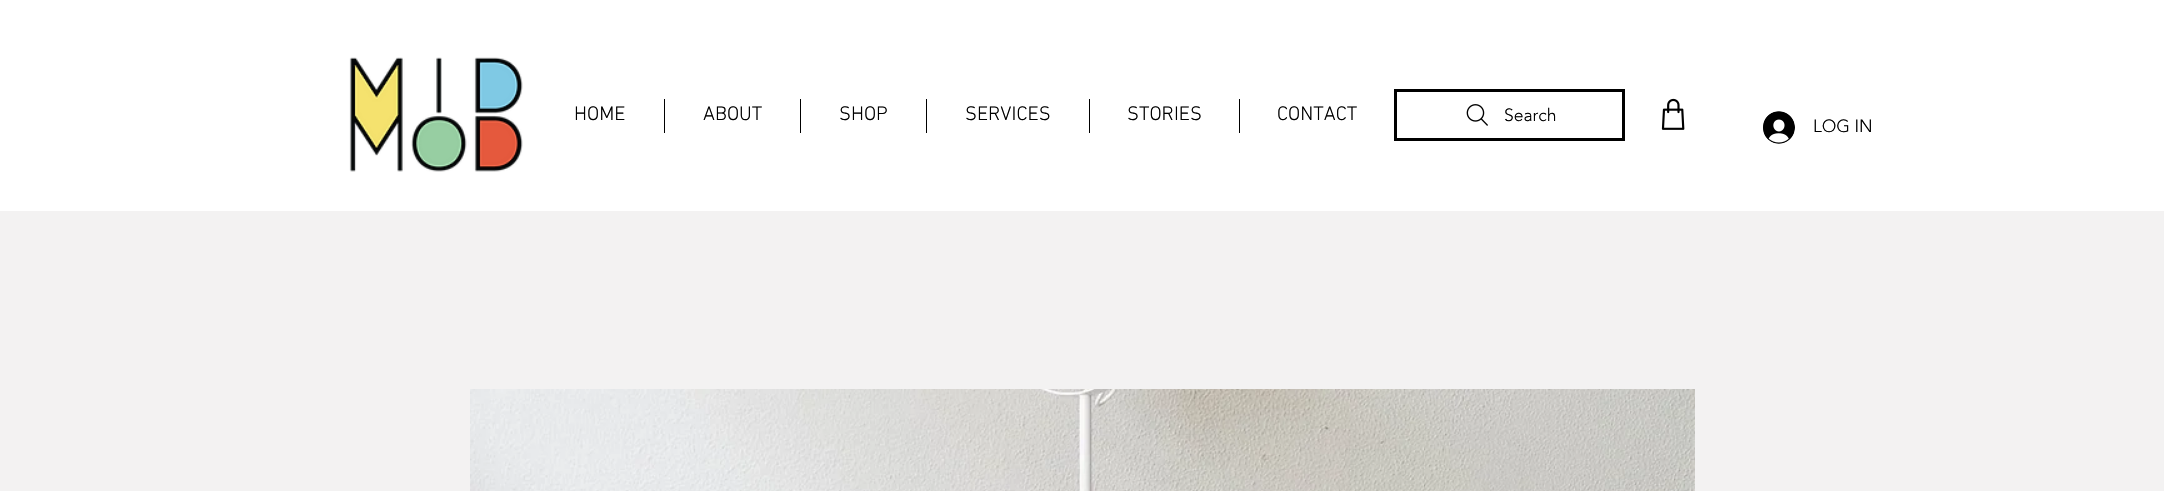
#include "include/core/SkBlurTypes.h"
#include "include/core/SkCanvas.h"
#include "include/core/SkData.h"
#include "include/core/SkFont.h"
#include "include/core/SkFontMgr.h"
#include "include/core/SkImage.h"
#include "include/core/SkMaskFilter.h"
#include "include/core/SkPaint.h"
#include "include/core/SkPathBuilder.h"
#include "include/core/SkTextBlob.h"
#include "include/effects/SkDashPathEffect.h"
#include "include/effects/SkGradientShader.h"
#include "include/utils/SkParsePath.h"

extern sk_sp<SkFontMgr> fontMgr;

void draw(SkCanvas* canvas) {
    SkPaint p;
    p.setAntiAlias(true);
    auto font = [&](const char* family, int weight, float size, bool italic = false) {
        SkFontStyle style(weight, SkFontStyle::kNormal_Width,
            italic ? SkFontStyle::kItalic_Slant : SkFontStyle::kUpright_Slant);
        SkFont result(fontMgr->matchFamilyStyle(family, style), size);
        result.setSubpixel(true);
        return result;
    };
    auto drawPhoto = [&](const char* path, float l, float t, float r, float b) {
        auto image = SkImages::DeferredFromEncodedData(SkData::MakeFromFileName(path));
        canvas->drawImageRect(image, SkRect::MakeLTRB(l, t, r, b), SkSamplingOptions());
    };
    canvas->clear(0xFFFFFFFF);
    drawPhoto("media/1.png", 349, 57, 523, 172);
    auto font1 = font("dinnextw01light", 300, 20);
    p.setColor(0xFF000000);
    canvas->drawString("HOME", 574, 120, font1, p);
    canvas->drawRect(SkRect::MakeLTRB(664, 99, 665, 133), p);
    canvas->drawString("ABOUT", 703, 120, font1, p);
    canvas->drawRect(SkRect::MakeLTRB(800, 99, 801, 133), p);
    canvas->drawString("SHOP", 839, 120, font1, p);
    canvas->drawRect(SkRect::MakeLTRB(926, 99, 927, 133), p);
    canvas->drawString("SERVICES", 965, 120, font1, p);
    canvas->drawRect(SkRect::MakeLTRB(1089, 99, 1090, 133), p);
    canvas->drawString("STORIES", 1127, 120, font1, p);
    canvas->drawRect(SkRect::MakeLTRB(1239, 99, 1240, 133), p);
    canvas->drawString("CONTACT", 1277, 120, font1, p);
    p.setStyle(SkPaint::kStroke_Style);
    p.setStrokeWidth(3);
    canvas->drawRect(SkRect::MakeLTRB(1395.5f, 90.5f, 1623.5f, 139.5f), p);
    drawPhoto("media/2.png", 1466, 104, 1488, 126);
    auto font2 = font("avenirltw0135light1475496", 300, 17.5f);
    p.setStyle(SkPaint::kFill_Style);
    canvas->drawString("Search", 1504, 121, font2, p);
    drawPhoto("media/3.png", 1661, 98, 1685, 130);
    drawPhoto("media/4.png", 1763, 111, 1795, 144);
    canvas->drawString("LOG IN", 1813, 132, font2, p);
    p.setColor(0xFFF3F2F2);
    canvas->drawRect(SkRect::MakeLTRB(0, 211, 2164, 491), p);
    drawPhoto("media/5.png", 470, 389, 1695, 491);
}
